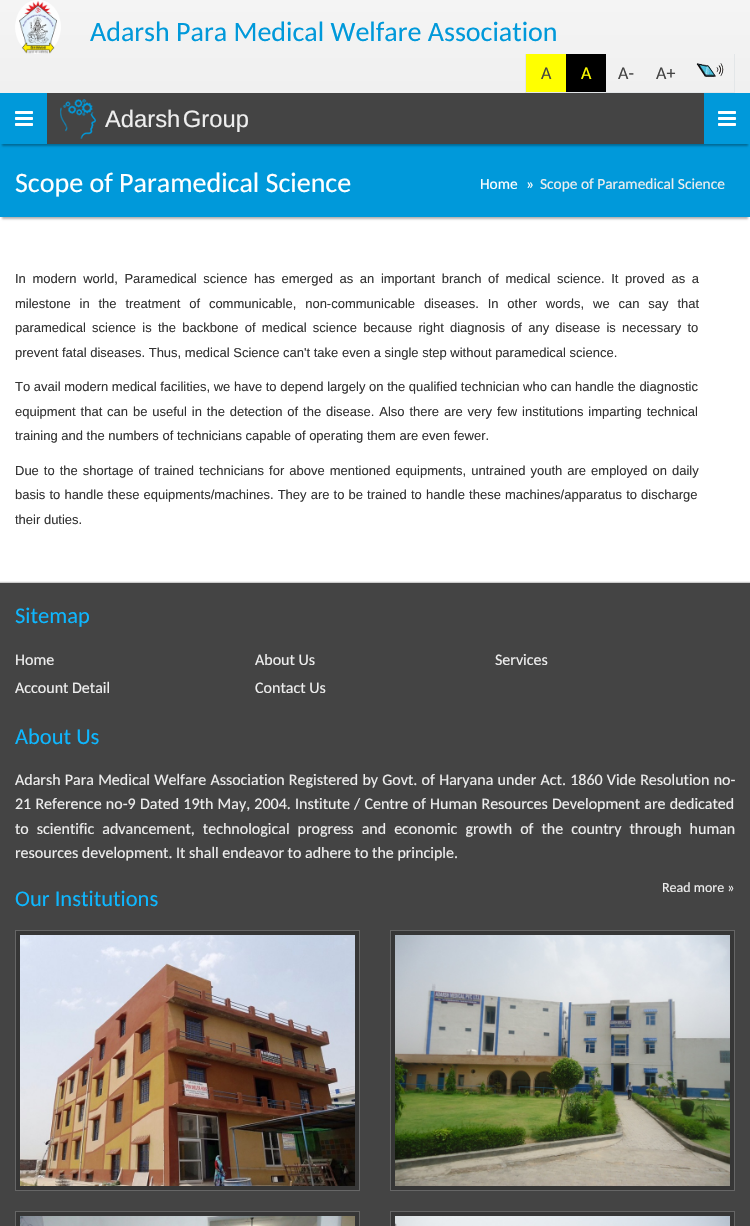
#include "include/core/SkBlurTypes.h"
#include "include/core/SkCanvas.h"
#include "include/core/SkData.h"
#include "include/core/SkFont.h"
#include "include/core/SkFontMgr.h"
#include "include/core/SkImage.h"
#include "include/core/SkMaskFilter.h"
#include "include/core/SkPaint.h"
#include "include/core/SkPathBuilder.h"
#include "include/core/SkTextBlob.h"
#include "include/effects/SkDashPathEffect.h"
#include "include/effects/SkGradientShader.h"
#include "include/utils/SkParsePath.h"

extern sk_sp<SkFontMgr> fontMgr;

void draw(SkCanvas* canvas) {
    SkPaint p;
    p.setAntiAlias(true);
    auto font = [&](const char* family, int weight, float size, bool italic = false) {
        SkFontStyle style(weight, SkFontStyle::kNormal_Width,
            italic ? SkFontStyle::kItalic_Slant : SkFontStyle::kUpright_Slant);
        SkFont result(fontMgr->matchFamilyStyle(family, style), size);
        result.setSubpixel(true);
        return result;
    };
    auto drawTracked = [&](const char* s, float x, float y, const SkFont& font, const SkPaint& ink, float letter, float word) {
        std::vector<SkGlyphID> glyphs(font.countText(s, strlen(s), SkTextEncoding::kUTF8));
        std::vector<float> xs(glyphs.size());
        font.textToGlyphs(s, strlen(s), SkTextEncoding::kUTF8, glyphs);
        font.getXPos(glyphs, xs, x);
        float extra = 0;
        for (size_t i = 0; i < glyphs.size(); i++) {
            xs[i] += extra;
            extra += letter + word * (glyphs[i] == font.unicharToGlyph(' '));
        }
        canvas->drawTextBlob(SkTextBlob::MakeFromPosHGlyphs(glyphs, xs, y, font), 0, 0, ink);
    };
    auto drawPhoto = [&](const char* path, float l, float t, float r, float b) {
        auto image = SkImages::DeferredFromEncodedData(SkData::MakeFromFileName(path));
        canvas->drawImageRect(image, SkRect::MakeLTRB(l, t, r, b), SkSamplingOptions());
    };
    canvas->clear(0xFFFFFFFF);
    {
        const SkColor colors[] = {0xFFF0F0F0, 0xFFF4F4F4};
        const float stops[] = {0, 1};
        const SkPoint ends[] = {{375, 93}, {375, 0}};
        p.setShader(SkGradientShader::MakeLinear(ends, colors, stops, 2, SkTileMode::kClamp));
        p.setAlpha(255);
    }
    canvas->drawRect(SkRect::MakeLTRB(0, 0, 750, 93), p);
    drawPhoto("media/1.png", 15, 0, 61, 54);
    auto font1 = font("Carlito", 400, 28);
    p.setShader(nullptr);
    p.setColor(0xFF0099DA);
    canvas->drawString("Adarsh Para Medical Welfare Association", 90, 41, font1, p);
    {
        const struct { float l, t, r, b; SkColor color; } items[] = {
            {734, 54, 735, 93, 0xFFE3E6E8},
            {525, 92, 735, 93, 0xFFE3E6E8},
            {525, 54, 526, 93, 0xFFE3E6E8},
            {526, 54, 566, 92, 0xFFFFFF00},
        };
        for (auto [l, t, r, b, color] : items) {
            p.setColor(color);
            canvas->drawRect(SkRect::MakeLTRB(l, t, r, b), p);
        }
    }
    auto font2 = font("Carlito", 400, 18);
    p.setColor(0xFF444444);
    canvas->drawString("A", 541, 79, font2, p);
    p.setColor(0xFF000000);
    canvas->drawRect(SkRect::MakeLTRB(566, 54, 606, 92), p);
    p.setColor(0xFFFFFF00);
    canvas->drawString("A", 581, 79, font2, p);
    p.setColor(0xFF444444);
    canvas->drawString("A-", 618, 79, font2, p);
    canvas->drawString("A+", 656, 79, font2, p);
    drawPhoto("media/2.png", 696, 63, 724, 78);
    p.setColor(0x4D000000);
    p.setMaskFilter(SkMaskFilter::MakeBlur(kNormal_SkBlurStyle, 1));
    canvas->drawRect(SkRect::MakeLTRB(2, 150, 748, 219), p);
    p.setMaskFilter(nullptr);
    p.setColor(0xFF0099DA);
    canvas->drawRect(SkRect::MakeLTRB(0, 144, 750, 217), p);
    p.setColor(0x4D000000);
    p.setMaskFilter(SkMaskFilter::MakeBlur(kNormal_SkBlurStyle, 1));
    canvas->drawRect(SkRect::MakeLTRB(2, 99, 748, 146), p);
    p.setMaskFilter(nullptr);
    p.setColor(0xFF444444);
    canvas->drawRect(SkRect::MakeLTRB(47, 93, 704, 144), p);
    p.setColor(0xFF0099DA);
    canvas->drawRect(SkRect::MakeLTRB(0, 93, 47, 144), p);
    drawPhoto("media/3.png", 15, 111, 33, 126);
    drawPhoto("media/4.png", 60, 99, 96, 139);
    auto font3 = font("Liberation Sans", 400, 23.75f);
    p.setColor(0xFFEEEEEE);
    drawTracked("Adarsh Group", 105, 127, font3, p, 0, -4);
    p.setColor(0xFF0099DA);
    canvas->drawRect(SkRect::MakeLTRB(704, 93, 750, 144), p);
    drawPhoto("media/3.png", 718, 111, 736, 126);
    p.setColor(0xFFFFFFFF);
    canvas->drawString("Scope of Paramedical Science", 15, 192, font1, p);
    auto font4 = font("Carlito", 400, 15.4f);
    canvas->drawString("Home", 480, 189, font4, p);
    canvas->drawString("»", 526, 189, font4, p);
    p.setColor(0xFFEEEEEE);
    canvas->drawString("Scope of Paramedical Science", 540, 189, font4, p);
    auto font5 = font("Liberation Sans", 400, 13);
    p.setColor(0xFF333333);
    drawTracked("In modern world, Paramedical science has emerged as an important branch of medical science. It proved as a", 15, 283, font5, p, 0, 3);
    drawTracked("milestone in the treatment of communicable, non-communicable diseases. In other words, we can say that", 15, 308, font5, p, 0, 5.25f);
    drawTracked("paramedical science is the backbone of medical science because right diagnosis of any disease is necessary to", 15, 332, font5, p, 0, 2.6f);
    canvas->drawString("prevent fatal diseases. Thus, medical Science can't take even a single step without paramedical science.", 15, 357, font5, p);
    canvas->drawString("To avail modern medical facilities, we have to depend largely on the qualified technician who can handle the diagnostic", 15, 391, font5, p);
    drawTracked("equipment that can be useful in the detection of the disease. Also there are very few institutions imparting technical", 15, 416, font5, p, 0, 1.25f);
    canvas->drawString("training and the numbers of technicians capable of operating them are even fewer.", 15, 440, font5, p);
    drawTracked("Due to the shortage of trained technicians for above mentioned equipments, untrained youth are employed on daily", 15, 475, font5, p, 0, 1.4f);
    drawTracked("basis to handle these equipments/machines. They are to be trained to handle these machines/apparatus to discharge", 15, 499, font5, p, 0, 0.5f);
    canvas->drawString("their duties.", 15, 524, font5, p);
    p.setColor(0x4D000000);
    p.setMaskFilter(SkMaskFilter::MakeBlur(kNormal_SkBlurStyle, 0.5f));
    canvas->drawRect(SkRect::MakeLTRB(0, 582, 750, 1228), p);
    p.setMaskFilter(nullptr);
    p.setColor(0xFF444444);
    canvas->drawRect(SkRect::MakeLTRB(0, 583, 750, 1226), p);
    p.setColor(0xFFCCCCCC);
    canvas->drawRect(SkRect::MakeLTRB(0, 582, 750, 583), p);
    auto font6 = font("Carlito", 400, 22.5f);
    p.setColor(0xFF0EB7FF);
    canvas->drawString("Sitemap", 15, 623, font6, p);
    auto font7 = font("Carlito", 400, 16);
    p.setColor(0xFFEEEEEE);
    {
        const struct { const char* s; float x, y; } items[] = {
            {"Home", 15, 665},
            {"About Us", 255, 665},
            {"Services", 495, 665},
            {"Account Detail", 15, 693},
            {"Contact Us", 255, 693},
        };
        for (auto [s, x, y] : items) {
            canvas->drawString(s, x, y, font7, p);
        }
    }
    p.setColor(0xFF0EB7FF);
    canvas->drawString("About Us", 15, 744, font6, p);
    p.setColor(0xFFEEEEEE);
    drawTracked("Adarsh Para Medical Welfare Association Registered by Govt. of Haryana under Act. 1860 Vide Resolution no-", 15, 785, font7, p, 0, 0.6f);
    drawTracked("21 Reference no-9 Dated 19th May, 2004. Institute / Centre of Human Resources Development are dedicated", 15, 809, font7, p, 0, 0.6f);
    drawTracked("to scientific advancement, technological progress and economic growth of the country through human", 15, 834, font7, p, 0, 4.4f);
    canvas->drawString("resources development. It shall endeavor to adhere to the principle.", 15, 858, font7, p);
    auto font8 = font("Carlito", 400, 14);
    canvas->drawString("Read more »", 662, 892, font8, p);
    p.setColor(0xFF0EB7FF);
    canvas->drawString("Our Institutions", 15, 906, font6, p);
    p.setColor(0xFF363636);
    canvas->drawRect(SkRect::MakeLTRB(15.5f, 930.5f, 359.5f, 1190.5f), p);
    p.setStyle(SkPaint::kStroke_Style);
    p.setStrokeWidth(1);
    p.setColor(0xFF666666);
    canvas->drawRect(SkRect::MakeLTRB(15.5f, 930.5f, 359.5f, 1190.5f), p);
    drawPhoto("media/5.png", 20, 935, 355, 1186);
    p.setStyle(SkPaint::kFill_Style);
    p.setColor(0xFF363636);
    canvas->drawRect(SkRect::MakeLTRB(390.5f, 930.5f, 734.5f, 1190.5f), p);
    p.setStyle(SkPaint::kStroke_Style);
    p.setColor(0xFF666666);
    canvas->drawRect(SkRect::MakeLTRB(390.5f, 930.5f, 734.5f, 1190.5f), p);
    drawPhoto("media/6.png", 395, 935, 730, 1186);
    p.setStyle(SkPaint::kFill_Style);
    p.setColor(0xFF363636);
    canvas->drawRect(SkRect::MakeLTRB(15.5f, 1211.5f, 359.5f, 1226.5f), p);
    p.setStyle(SkPaint::kStroke_Style);
    p.setColor(0xFF666666);
    canvas->drawRect(SkRect::MakeLTRB(15.5f, 1211.5f, 359.5f, 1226.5f), p);
    drawPhoto("media/7.png", 20, 1216, 355, 1226);
    p.setStyle(SkPaint::kFill_Style);
    p.setColor(0xFF363636);
    canvas->drawRect(SkRect::MakeLTRB(390.5f, 1211.5f, 734.5f, 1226.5f), p);
    p.setStyle(SkPaint::kStroke_Style);
    p.setColor(0xFF666666);
    canvas->drawRect(SkRect::MakeLTRB(390.5f, 1211.5f, 734.5f, 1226.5f), p);
    drawPhoto("media/8.png", 395, 1216, 730, 1226);
}
